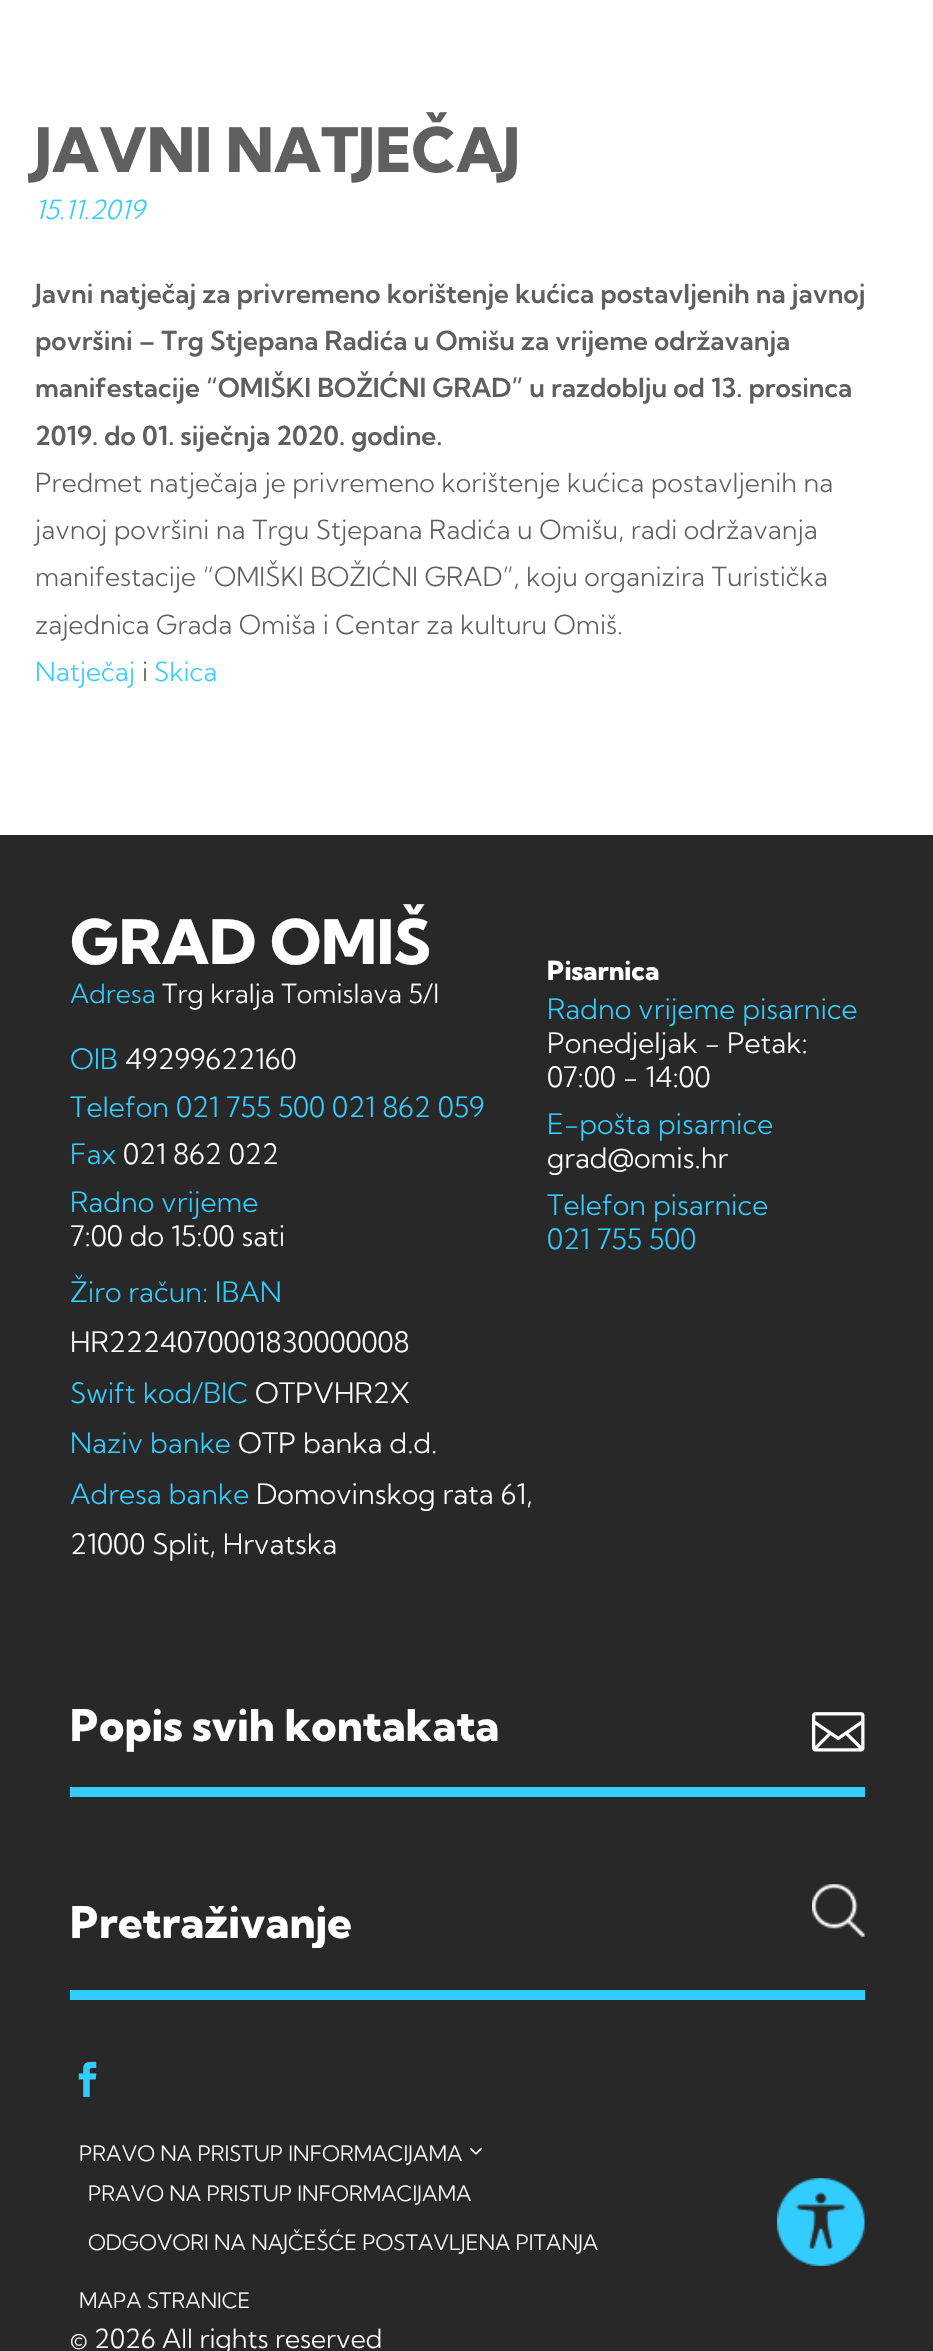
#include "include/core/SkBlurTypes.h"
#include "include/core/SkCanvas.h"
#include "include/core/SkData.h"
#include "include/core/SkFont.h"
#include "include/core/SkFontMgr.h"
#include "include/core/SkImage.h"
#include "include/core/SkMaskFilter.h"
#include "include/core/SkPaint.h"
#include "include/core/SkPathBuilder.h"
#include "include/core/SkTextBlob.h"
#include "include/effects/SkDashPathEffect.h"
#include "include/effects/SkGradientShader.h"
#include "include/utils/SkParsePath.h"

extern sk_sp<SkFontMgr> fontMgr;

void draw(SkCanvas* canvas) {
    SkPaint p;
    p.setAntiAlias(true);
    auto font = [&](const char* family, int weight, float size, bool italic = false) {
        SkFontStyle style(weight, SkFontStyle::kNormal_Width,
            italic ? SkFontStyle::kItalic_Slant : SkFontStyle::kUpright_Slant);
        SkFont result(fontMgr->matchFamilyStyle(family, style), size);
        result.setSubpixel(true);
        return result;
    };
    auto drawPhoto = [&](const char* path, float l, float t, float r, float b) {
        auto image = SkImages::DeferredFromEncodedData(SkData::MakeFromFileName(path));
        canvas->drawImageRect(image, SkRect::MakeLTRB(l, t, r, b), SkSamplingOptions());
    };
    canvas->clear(0xFFFFFFFF);
    auto font1 = font("Kumbh Sans", 800, 61.25f);
    p.setColor(0xFF5F5F5F);
    canvas->drawString("JAVNI NATJEČAJ", 35, 172, font1, p);
    auto font2 = font("Kumbh Sans", 300, 26.25f, true);
    p.setColor(0xFF33CCFF);
    canvas->drawString("15.11.2019", 35, 219, font2, p);
    auto font3 = font("Kumbh Sans", 600, 26.25f);
    p.setColor(0xFF5F5F5F);
    {
        const struct { const char* s; float x, y; } items[] = {
            {"Javni natječaj za privremeno korištenje kućica postavljenih na javnoj", 35, 303},
            {"površini – Trg Stjepana Radića u Omišu za vrijeme održavanja", 35, 350},
            {"manifestacije “OMIŠKI BOŽIĆNI GRAD” u razdoblju od 13. prosinca", 35, 397},
            {"2019. do 01. siječnja 2020. godine.", 35, 445},
        };
        for (auto [s, x, y] : items) {
            canvas->drawString(s, x, y, font3, p);
        }
    }
    auto font4 = font("Kumbh Sans", 300, 26.25f);
    {
        const struct { const char* s; float x, y; } items[] = {
            {"Predmet natječaja je privremeno korištenje kućica postavljenih na", 35, 492},
            {"javnoj površini na Trgu Stjepana Radića u Omišu, radi održavanja", 35, 539},
            {"manifestacije “OMIŠKI BOŽIĆNI GRAD”, koju organizira Turistička", 35, 586},
            {"zajednica Grada Omiša i Centar za kulturu Omiš.", 35, 634},
        };
        for (auto [s, x, y] : items) {
            canvas->drawString(s, x, y, font4, p);
        }
    }
    p.setColor(0xFF33CCFF);
    canvas->drawString("Natječaj", 35, 681, font4, p);
    p.setColor(0xFF5F5F5F);
    canvas->drawString("i", 142, 681, font4, p);
    p.setColor(0xFF33CCFF);
    canvas->drawString("Skica", 154, 681, font4, p);
    p.setColor(0xFF282828);
    canvas->drawRect(SkRect::MakeLTRB(0, 835, 933, 2351), p);
    p.setColor(0xFFFFFFFF);
    canvas->drawString("GRAD OMIŠ", 70, 964, font1, p);
    p.setColor(0xFF33CCFF);
    canvas->drawString("Adresa", 70, 1003, font4, p);
    p.setColor(0xFFFFFFFF);
    canvas->drawString("Trg kralja Tomislava 5/I", 162, 1003, font4, p);
    auto font5 = font("Kumbh Sans", 300, 28);
    p.setColor(0xFF33CCFF);
    canvas->drawString("OIB", 70, 1069, font5, p);
    p.setColor(0xFFFFFFFF);
    canvas->drawString("49299622160", 125, 1069, font5, p);
    p.setColor(0xFF33CCFF);
    canvas->drawString("Telefon 021 755 500 021 862 059", 70, 1117, font5, p);
    canvas->drawString("Fax", 70, 1164, font5, p);
    p.setColor(0xFFFFFFFF);
    canvas->drawString("021 862 022", 123, 1164, font5, p);
    p.setColor(0xFF33CCFF);
    canvas->drawString("Radno vrijeme", 70, 1212, font5, p);
    p.setColor(0xFFFFFFFF);
    canvas->drawString("7:00 do 15:00 sati", 70, 1246, font5, p);
    p.setColor(0xFF33CCFF);
    canvas->drawString("Žiro račun: IBAN", 70, 1302, font5, p);
    p.setColor(0xFFFFFFFF);
    canvas->drawString("HR2224070001830000008", 70, 1352, font5, p);
    p.setColor(0xFF33CCFF);
    canvas->drawString("Swift kod/BIC", 70, 1403, font5, p);
    p.setColor(0xFFFFFFFF);
    canvas->drawString("OTPVHR2X", 255, 1403, font5, p);
    p.setColor(0xFF33CCFF);
    canvas->drawString("Naziv banke", 70, 1453, font5, p);
    p.setColor(0xFFFFFFFF);
    canvas->drawString("OTP banka d.d.", 238, 1453, font5, p);
    p.setColor(0xFF33CCFF);
    canvas->drawString("Adresa banke", 70, 1504, font5, p);
    p.setColor(0xFFFFFFFF);
    canvas->drawString("Domovinskog rata 61,", 256, 1504, font5, p);
    canvas->drawString("21000 Split, Hrvatska", 70, 1554, font5, p);
    auto font6 = font("Kumbh Sans", 800, 26.25f);
    canvas->drawString("Pisarnica", 547, 980, font6, p);
    p.setColor(0xFF33CCFF);
    canvas->drawString("Radno vrijeme pisarnice", 547, 1019, font5, p);
    p.setColor(0xFFFFFFFF);
    canvas->drawString("Ponedjeljak - Petak:", 547, 1053, font5, p);
    canvas->drawString("07:00 - 14:00", 547, 1087, font5, p);
    p.setColor(0xFF33CCFF);
    canvas->drawString("E-pošta pisarnice", 547, 1134, font5, p);
    p.setColor(0xFFFFFFFF);
    canvas->drawString("grad@omis.hr", 547, 1168, font5, p);
    p.setColor(0xFF33CCFF);
    canvas->drawString("Telefon pisarnice", 547, 1215, font5, p);
    canvas->drawString("021 755 500", 547, 1249, font5, p);
    canvas->drawRect(SkRect::MakeLTRB(70, 1787, 865, 1797), p);
    auto font7 = font("Kumbh Sans", 800, 43.75f);
    p.setColor(0xFFFFFFFF);
    canvas->drawString("Popis svih kontakata", 70, 1741, font7, p);
    drawPhoto("media/1.png", 812, 1712, 865, 1752);
    p.setColor(0xFF33CCFF);
    canvas->drawRect(SkRect::MakeLTRB(70, 1990, 865, 2000), p);
    canvas->save();
    canvas->clipRect(SkRect::MakeLTRB(70, 1894, 838, 1948));
    p.setColor(0xFFFFFFFF);
    canvas->drawString("Pretraživanje", 70, 1938, font7, p);
    canvas->restore();
    drawPhoto("media/2.png", 812, 1884, 865, 1937);
    drawPhoto("media/3.png", 78, 2061, 97, 2097);
    auto font8 = font("Kumbh Sans", 300, 21);
    canvas->drawString("PRAVO NA PRISTUP INFORMACIJAMA", 79, 2161, font8, p);
    drawPhoto("media/4.png", 469, 2147, 482, 2155);
    {
        const struct { const char* s; float x, y; } items[] = {
            {"PRAVO NA PRISTUP INFORMACIJAMA", 88, 2201},
            {"ODGOVORI NA NAJČEŠĆE POSTAVLJENA PITANJA", 88, 2250},
            {"MAPA STRANICE", 79, 2308},
        };
        for (auto [s, x, y] : items) {
            canvas->drawString(s, x, y, font8, p);
        }
    }
    drawPhoto("media/5.png", 777, 2178, 865, 2266);
    canvas->drawString("© 2026 All rights reserved", 70, 2348, font4, p);
}
